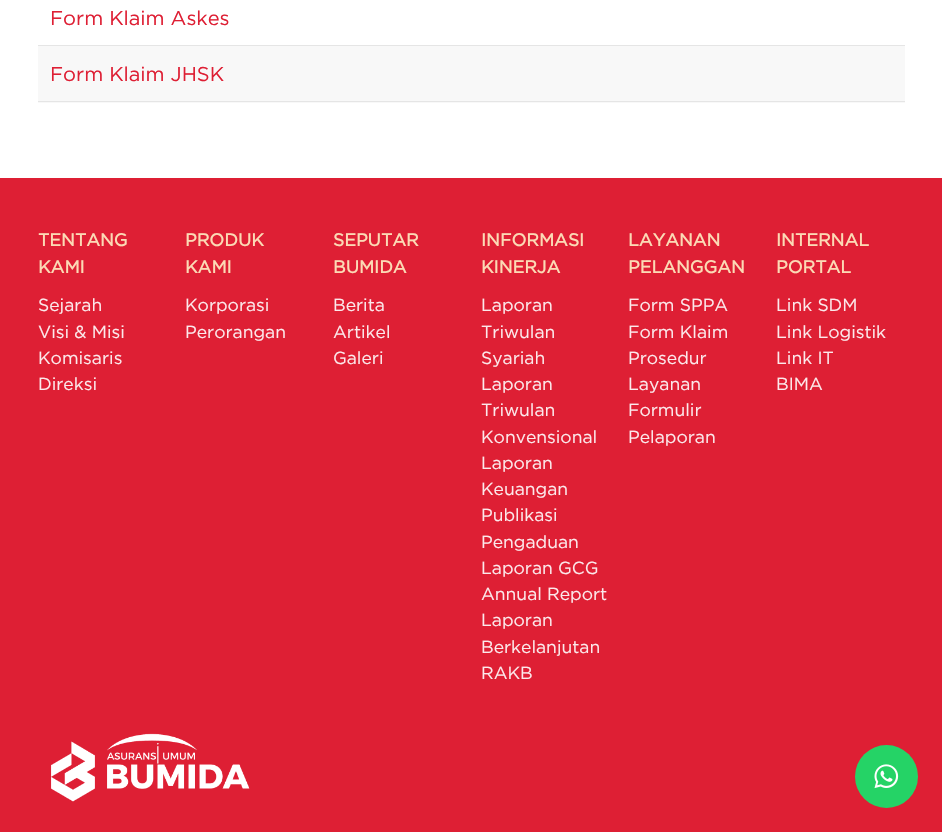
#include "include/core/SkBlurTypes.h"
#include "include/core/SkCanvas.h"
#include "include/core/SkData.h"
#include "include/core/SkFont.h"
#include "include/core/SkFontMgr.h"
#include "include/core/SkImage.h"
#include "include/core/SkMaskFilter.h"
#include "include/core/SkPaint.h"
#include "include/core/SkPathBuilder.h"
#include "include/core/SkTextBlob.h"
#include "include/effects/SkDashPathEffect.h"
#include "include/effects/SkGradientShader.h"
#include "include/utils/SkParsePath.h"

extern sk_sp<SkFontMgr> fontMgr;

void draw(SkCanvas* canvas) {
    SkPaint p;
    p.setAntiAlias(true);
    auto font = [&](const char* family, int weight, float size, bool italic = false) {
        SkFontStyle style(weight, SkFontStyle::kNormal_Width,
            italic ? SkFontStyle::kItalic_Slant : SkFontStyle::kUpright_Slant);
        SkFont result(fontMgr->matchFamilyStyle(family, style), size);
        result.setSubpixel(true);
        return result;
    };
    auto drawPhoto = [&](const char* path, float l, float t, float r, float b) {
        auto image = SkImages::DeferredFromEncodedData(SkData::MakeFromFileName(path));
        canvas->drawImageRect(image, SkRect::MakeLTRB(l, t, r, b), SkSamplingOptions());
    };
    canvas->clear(0xFFFFFFFF);
    auto font1 = font("Gotham", 400, 20);
    p.setColor(0xFFDE1F34);
    canvas->drawString("Form Klaim Askes", 50, 25, font1, p);
    {
        const struct { float l, t, r, b; SkColor color; } items[] = {
            {38, 46, 905, 103, 0xFFF8F8F8},
            {38, 45, 905, 46, 0xFFE5E5E5},
            {38, 101, 905, 102, 0xFFE5E5E5},
        };
        for (auto [l, t, r, b, color] : items) {
            p.setColor(color);
            canvas->drawRect(SkRect::MakeLTRB(l, t, r, b), p);
        }
    }
    p.setColor(0xFFDE1F34);
    canvas->drawString("Form Klaim JHSK", 50, 81, font1, p);
    canvas->drawRect(SkRect::MakeLTRB(0, 178, 942, 832), p);
    auto font2 = font("Gotham", 700, 17.5f);
    p.setColor(0xFFFCDAB5);
    canvas->drawString("TENTANG", 38, 246, font2, p);
    canvas->drawString("KAMI", 38, 273, font2, p);
    auto font3 = font("Gotham", 400, 17.5f);
    p.setColor(0xFFFCE9EB);
    {
        const struct { const char* s; float x, y; } items[] = {
            {"Sejarah", 38, 311},
            {"Visi & Misi", 38, 338},
            {"Komisaris", 38, 364},
            {"Direksi", 38, 390},
        };
        for (auto [s, x, y] : items) {
            canvas->drawString(s, x, y, font3, p);
        }
    }
    p.setColor(0xFFFCDAB5);
    canvas->drawString("PRODUK", 185, 246, font2, p);
    canvas->drawString("KAMI", 185, 273, font2, p);
    p.setColor(0xFFFCE9EB);
    canvas->drawString("Korporasi", 185, 311, font3, p);
    canvas->drawString("Perorangan", 185, 338, font3, p);
    p.setColor(0xFFFCDAB5);
    canvas->drawString("SEPUTAR", 333, 246, font2, p);
    canvas->drawString("BUMIDA", 333, 273, font2, p);
    p.setColor(0xFFFCE9EB);
    {
        const struct { const char* s; float x, y; } items[] = {
            {"Berita", 333, 311},
            {"Artikel", 333, 338},
            {"Galeri", 333, 364},
        };
        for (auto [s, x, y] : items) {
            canvas->drawString(s, x, y, font3, p);
        }
    }
    p.setColor(0xFFFCDAB5);
    canvas->drawString("INFORMASI", 481, 246, font2, p);
    canvas->drawString("KINERJA", 481, 273, font2, p);
    p.setColor(0xFFFCE9EB);
    {
        const struct { const char* s; float x, y; } items[] = {
            {"Laporan", 481, 311},
            {"Triwulan", 481, 338},
            {"Syariah", 481, 364},
            {"Laporan", 481, 390},
            {"Triwulan", 481, 416},
            {"Konvensional", 481, 443},
            {"Laporan", 481, 469},
            {"Keuangan", 481, 495},
            {"Publikasi", 481, 521},
            {"Pengaduan", 481, 548},
            {"Laporan GCG", 481, 574},
            {"Annual Report", 481, 600},
            {"Laporan", 481, 626},
            {"Berkelanjutan", 481, 653},
            {"RAKB", 481, 679},
        };
        for (auto [s, x, y] : items) {
            canvas->drawString(s, x, y, font3, p);
        }
    }
    p.setColor(0xFFFCDAB5);
    canvas->drawString("LAYANAN", 628, 246, font2, p);
    canvas->drawString("PELANGGAN", 628, 273, font2, p);
    p.setColor(0xFFFCE9EB);
    {
        const struct { const char* s; float x, y; } items[] = {
            {"Form SPPA", 628, 311},
            {"Form Klaim", 628, 338},
            {"Prosedur", 628, 364},
            {"Layanan", 628, 390},
            {"Formulir", 628, 416},
            {"Pelaporan", 628, 443},
        };
        for (auto [s, x, y] : items) {
            canvas->drawString(s, x, y, font3, p);
        }
    }
    p.setColor(0xFFFCDAB5);
    canvas->drawString("INTERNAL", 776, 246, font2, p);
    canvas->drawString("PORTAL", 776, 273, font2, p);
    p.setColor(0xFFFCE9EB);
    {
        const struct { const char* s; float x, y; } items[] = {
            {"Link SDM", 776, 311},
            {"Link Logistik", 776, 338},
            {"Link IT", 776, 364},
            {"BIMA", 776, 390},
        };
        for (auto [s, x, y] : items) {
            canvas->drawString(s, x, y, font3, p);
        }
    }
    drawPhoto("media/1.png", 51, 733, 250, 802);
    p.setColor(0xFF25D366);
    canvas->drawCircle(886.5f, 776.5f, 31.5f, p);
    drawPhoto("media/2.png", 874, 764, 899, 789);
}
